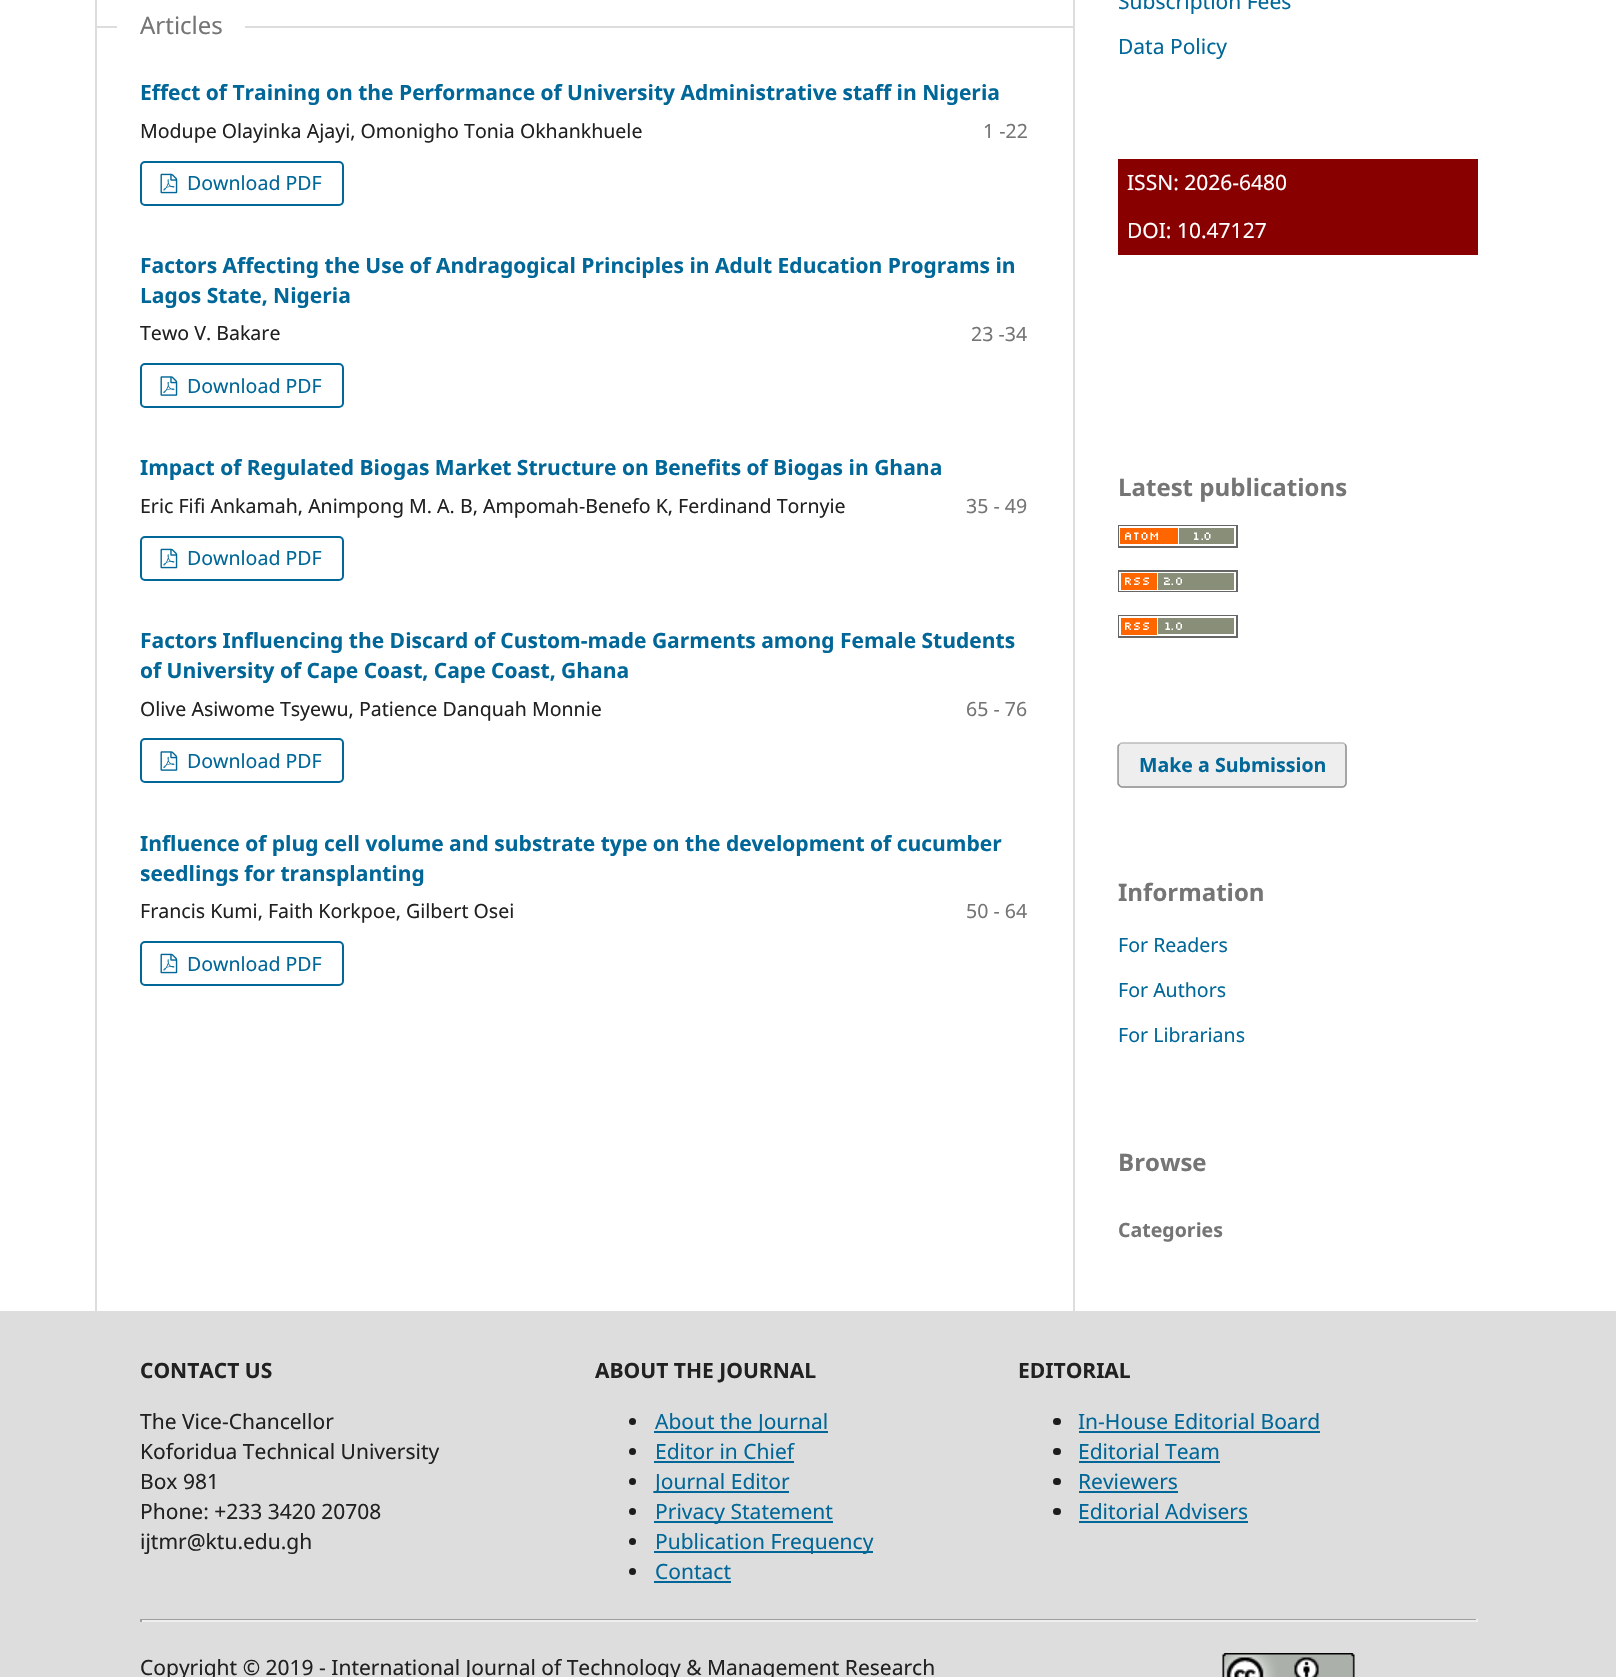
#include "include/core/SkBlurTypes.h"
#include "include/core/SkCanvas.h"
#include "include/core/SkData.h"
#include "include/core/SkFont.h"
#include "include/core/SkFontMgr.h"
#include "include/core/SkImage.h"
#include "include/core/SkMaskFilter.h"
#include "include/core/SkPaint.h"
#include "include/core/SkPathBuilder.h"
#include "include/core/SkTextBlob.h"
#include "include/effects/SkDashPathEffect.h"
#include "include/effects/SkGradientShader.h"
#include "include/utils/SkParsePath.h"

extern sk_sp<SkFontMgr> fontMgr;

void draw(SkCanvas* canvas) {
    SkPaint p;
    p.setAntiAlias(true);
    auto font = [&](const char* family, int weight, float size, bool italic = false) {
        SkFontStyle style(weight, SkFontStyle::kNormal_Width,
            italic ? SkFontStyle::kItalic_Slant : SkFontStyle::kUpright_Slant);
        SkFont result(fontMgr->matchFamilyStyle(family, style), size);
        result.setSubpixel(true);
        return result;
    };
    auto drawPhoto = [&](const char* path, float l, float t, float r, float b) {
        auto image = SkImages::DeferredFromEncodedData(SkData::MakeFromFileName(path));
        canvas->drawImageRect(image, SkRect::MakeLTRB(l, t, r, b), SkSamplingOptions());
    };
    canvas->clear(0xFFFFFFFF);
    {
        const struct { float l, t, r, b; SkColor color; } items[] = {
            {95, 0, 97, 1311, 0xFFDDDDDD},
            {95, 26, 1073, 28, 0xFFDDDDDD},
            {117, 26, 245, 28, 0xFFFFFFFF},
        };
        for (auto [l, t, r, b, color] : items) {
            p.setColor(color);
            canvas->drawRect(SkRect::MakeLTRB(l, t, r, b), p);
        }
    }
    auto font1 = font("Noto Sans", 400, 24);
    p.setColor(0xFF757575);
    canvas->drawString("Articles", 140, 34, font1, p);
    auto font2 = font("Noto Sans", 700, 21);
    p.setColor(0xFF006798);
    canvas->drawString("Effect of Training on the Performance of University Administrative staff in Nigeria", 140, 100, font2, p);
    auto font3 = font("Noto Sans", 400, 19.55f);
    p.setColor(0xFF212121);
    canvas->drawString("Modupe Olayinka Ajayi, Omonigho Tonia Okhankhuele", 140, 138, font3, p);
    p.setColor(0xFF757575);
    canvas->drawString("1 -22", 983, 138, font3, p);
    p.setStyle(SkPaint::kStroke_Style);
    p.setStrokeWidth(2);
    p.setColor(0xFF006798);
    canvas->drawRoundRect(SkRect::MakeLTRB(141, 162, 343, 205), 4, 4, p);
    drawPhoto("media/1.png", 160, 173, 178, 194);
    p.setStyle(SkPaint::kFill_Style);
    canvas->drawString("Download PDF", 187, 190, font3, p);
    canvas->drawString("Factors Affecting the Use of Andragogical Principles in Adult Education Programs in", 140, 273, font2, p);
    canvas->drawString("Lagos State, Nigeria", 140, 303, font2, p);
    p.setColor(0xFF212121);
    canvas->drawString("Tewo V. Bakare", 140, 340, font3, p);
    p.setColor(0xFF757575);
    canvas->drawString("23 -34", 971, 341, font3, p);
    p.setStyle(SkPaint::kStroke_Style);
    p.setColor(0xFF006798);
    canvas->drawRoundRect(SkRect::MakeLTRB(141, 364, 343, 407), 4, 4, p);
    drawPhoto("media/2.png", 160, 376, 178, 396);
    p.setStyle(SkPaint::kFill_Style);
    canvas->drawString("Download PDF", 187, 393, font3, p);
    canvas->drawString("Impact of Regulated Biogas Market Structure on Benefits of Biogas in Ghana", 140, 475, font2, p);
    p.setColor(0xFF212121);
    canvas->drawString("Eric Fifi Ankamah, Animpong M. A. B, Ampomah-Benefo K, Ferdinand Tornyie", 140, 513, font3, p);
    p.setColor(0xFF757575);
    canvas->drawString("35 - 49", 966, 513, font3, p);
    p.setStyle(SkPaint::kStroke_Style);
    p.setColor(0xFF006798);
    canvas->drawRoundRect(SkRect::MakeLTRB(141, 537, 343, 580), 4, 4, p);
    drawPhoto("media/1.png", 160, 548, 178, 569);
    p.setStyle(SkPaint::kFill_Style);
    canvas->drawString("Download PDF", 187, 565, font3, p);
    canvas->drawString("Factors Influencing the Discard of Custom-made Garments among Female Students", 140, 648, font2, p);
    canvas->drawString("of University of Cape Coast, Cape Coast, Ghana", 140, 678, font2, p);
    p.setColor(0xFF212121);
    canvas->drawString("Olive Asiwome Tsyewu, Patience Danquah Monnie", 140, 716, font3, p);
    p.setColor(0xFF757575);
    canvas->drawString("65 - 76", 966, 716, font3, p);
    p.setStyle(SkPaint::kStroke_Style);
    p.setColor(0xFF006798);
    canvas->drawRoundRect(SkRect::MakeLTRB(141, 739, 343, 782), 4, 4, p);
    drawPhoto("media/2.png", 160, 751, 178, 771);
    p.setStyle(SkPaint::kFill_Style);
    canvas->drawString("Download PDF", 187, 768, font3, p);
    canvas->drawString("Influence of plug cell volume and substrate type on the development of cucumber", 140, 851, font2, p);
    canvas->drawString("seedlings for transplanting", 140, 881, font2, p);
    p.setColor(0xFF212121);
    canvas->drawString("Francis Kumi, Faith Korkpoe, Gilbert Osei", 140, 918, font3, p);
    p.setColor(0xFF757575);
    canvas->drawString("50 - 64", 966, 918, font3, p);
    p.setStyle(SkPaint::kStroke_Style);
    p.setColor(0xFF006798);
    canvas->drawRoundRect(SkRect::MakeLTRB(141, 942, 343, 985), 4, 4, p);
    drawPhoto("media/1.png", 160, 953, 178, 974);
    p.setStyle(SkPaint::kFill_Style);
    canvas->drawString("Download PDF", 187, 971, font3, p);
    p.setColor(0xFFDDDDDD);
    canvas->drawRect(SkRect::MakeLTRB(1073, 0, 1075, 1311), p);
    auto font4 = font("Noto Sans", 400, 21);
    p.setColor(0xFF006798);
    canvas->drawString("Subscription Fees", 1118, 9, font4, p);
    canvas->drawString("Data Policy", 1118, 54, font4, p);
    p.setColor(0xFF880000);
    canvas->drawRect(SkRect::MakeLTRB(1118, 159, 1478, 255), p);
    p.setColor(0xFFFFFFFF);
    canvas->drawString("ISSN: 2026-6480", 1127, 190, font4, p);
    canvas->drawString("DOI: 10.47127", 1127, 238, font4, p);
    auto font5 = font("Noto Sans", 700, 24);
    p.setColor(0xFF757575);
    canvas->drawString("Latest publications", 1118, 496, font5, p);
    drawPhoto("media/3.png", 1118, 525, 1238, 548);
    drawPhoto("media/4.png", 1118, 570, 1238, 592);
    drawPhoto("media/5.png", 1118, 615, 1238, 638);
    p.setColor(0xFFEEEEEE);
    canvas->drawRoundRect(SkRect::MakeLTRB(1118, 743, 1347, 788), 5, 5, p);
    p.setStyle(SkPaint::kStroke_Style);
    p.setStrokeWidth(1.5f);
    p.setColor(0xFFBBBBBB);
    canvas->drawPath(SkPathBuilder().moveTo(1119.5f, 744.5f).cubicTo(1120, 743.5f, 1121, 743, 1122, 743).lineTo(1342.5f, 743).cubicTo(1343.5f, 743, 1344.5f, 743.5f, 1345, 744.5f).detach(), p);
    p.setColor(0x66000000);
    canvas->drawPath(SkPathBuilder().moveTo(1345, 744.5f).cubicTo(1346, 745, 1346, 746, 1346, 747).lineTo(1346, 783).cubicTo(1346, 784, 1346, 785, 1345, 785.5f).cubicTo(1344.5f, 786.5f, 1343.5f, 787, 1342.5f, 787).lineTo(1122, 787).cubicTo(1121, 787, 1120, 786.5f, 1119.5f, 785.5f).cubicTo(1118.5f, 785, 1118, 784, 1118, 783).lineTo(1118, 747).cubicTo(1118, 746, 1118.5f, 745, 1119.5f, 744.5f).detach(), p);
    auto font6 = font("Noto Sans", 700, 19.55f);
    p.setStyle(SkPaint::kFill_Style);
    p.setColor(0xFF006798);
    canvas->drawString("Make a Submission", 1139, 772, font6, p);
    p.setColor(0xFF757575);
    canvas->drawString("Information", 1118, 901, font5, p);
    p.setColor(0xFF006798);
    {
        const struct { const char* s; float x, y; } items[] = {
            {"For Readers", 1118, 952},
            {"For Authors", 1118, 997},
            {"For Librarians", 1118, 1042},
        };
        for (auto [s, x, y] : items) {
            canvas->drawString(s, x, y, font3, p);
        }
    }
    p.setColor(0xFF757575);
    canvas->drawString("Browse", 1118, 1171, font5, p);
    canvas->drawString("Categories", 1118, 1237, font6, p);
    p.setColor(0xFFDDDDDD);
    canvas->drawRect(SkRect::MakeLTRB(0, 1311, 1616, 1677), p);
    p.setColor(0xFF212121);
    {
        const struct { const char* s; float x, y; } items[] = {
            {"CONTACT US", 140, 1378},
            {"ABOUT THE JOURNAL", 595, 1378},
            {"EDITORIAL", 1018, 1378},
        };
        for (auto [s, x, y] : items) {
            canvas->drawString(s, x, y, font2, p);
        }
    }
    {
        const struct { const char* s; float x, y; } items[] = {
            {"The Vice-Chancellor", 140, 1429},
            {"Koforidua Technical University", 140, 1459},
            {"Box 981", 140, 1489},
            {"Phone: +233 3420 20708", 140, 1519},
            {"ijtmr@ktu.edu.gh", 140, 1549},
        };
        for (auto [s, x, y] : items) {
            canvas->drawString(s, x, y, font4, p);
        }
    }
    p.setColor(0xFF1D1D1D);
    canvas->drawCircle(632.5f, 1421.5f, 3.5f, p);
    p.setColor(0xFF006798);
    canvas->drawRect(SkRect::MakeLTRB(654, 1431, 828, 1433), p);
    canvas->drawString("About the Journal", 655, 1429, font4, p);
    p.setColor(0xFF1D1D1D);
    canvas->drawCircle(632.5f, 1451.5f, 3.5f, p);
    p.setColor(0xFF006798);
    canvas->drawString("Editor in Chief", 655, 1459, font4, p);
    canvas->drawRect(SkRect::MakeLTRB(654, 1461, 794, 1463), p);
    p.setColor(0xFF1D1D1D);
    canvas->drawCircle(632.5f, 1481.5f, 3.5f, p);
    p.setColor(0xFF006798);
    canvas->drawRect(SkRect::MakeLTRB(654, 1491, 789, 1493), p);
    canvas->drawString("Journal Editor", 655, 1489, font4, p);
    p.setColor(0xFF1D1D1D);
    canvas->drawCircle(632.5f, 1511.5f, 3.5f, p);
    p.setColor(0xFF006798);
    canvas->drawRect(SkRect::MakeLTRB(654, 1521, 833, 1523), p);
    canvas->drawString("Privacy Statement", 655, 1519, font4, p);
    p.setColor(0xFF1D1D1D);
    canvas->drawCircle(632.5f, 1541.5f, 3.5f, p);
    p.setColor(0xFF006798);
    canvas->drawRect(SkRect::MakeLTRB(654, 1551, 873, 1553), p);
    canvas->drawString("Publication Frequency", 655, 1549, font4, p);
    p.setColor(0xFF1D1D1D);
    canvas->drawCircle(632.5f, 1571.5f, 3.5f, p);
    p.setColor(0xFF006798);
    canvas->drawString("Contact", 655, 1579, font4, p);
    canvas->drawRect(SkRect::MakeLTRB(654, 1581, 731, 1583), p);
    p.setColor(0xFF1D1D1D);
    canvas->drawRoundRect(SkRect::MakeLTRB(1053, 1418, 1061, 1425), 3.5f, 3.5f, p);
    p.setColor(0xFF006798);
    canvas->drawString("In-House Editorial Board", 1078, 1429, font4, p);
    canvas->drawRect(SkRect::MakeLTRB(1079, 1431, 1320, 1433), p);
    p.setColor(0xFF1D1D1D);
    canvas->drawRoundRect(SkRect::MakeLTRB(1053, 1448, 1061, 1455), 3.5f, 3.5f, p);
    p.setColor(0xFF006798);
    canvas->drawString("Editorial Team", 1078, 1459, font4, p);
    canvas->drawRect(SkRect::MakeLTRB(1079, 1461, 1220, 1463), p);
    p.setColor(0xFF1D1D1D);
    canvas->drawRoundRect(SkRect::MakeLTRB(1053, 1478, 1061, 1485), 3.5f, 3.5f, p);
    p.setColor(0xFF006798);
    canvas->drawString("Reviewers", 1078, 1489, font4, p);
    canvas->drawRect(SkRect::MakeLTRB(1079, 1491, 1178, 1493), p);
    p.setColor(0xFF1D1D1D);
    canvas->drawRoundRect(SkRect::MakeLTRB(1053, 1508, 1061, 1515), 3.5f, 3.5f, p);
    p.setColor(0xFF006798);
    canvas->drawString("Editorial Advisers", 1078, 1519, font4, p);
    {
        const struct { float l, t, r, b; SkColor color; } items[] = {
            {1079, 1521, 1248, 1523, 0xFF006798},
            {140, 1619, 1478, 1620, 0xFF9F9F9F},
            {1476, 1619, 1478, 1622, 0xFFEEEEEE},
            {140, 1620, 1478, 1622, 0xFFEEEEEE},
            {140, 1619, 142, 1622, 0xFF9F9F9F},
        };
        for (auto [l, t, r, b, color] : items) {
            p.setColor(color);
            canvas->drawRect(SkRect::MakeLTRB(l, t, r, b), p);
        }
    }
    p.setColor(0xFF212121);
    canvas->drawString("Copyright © 2019 - International Journal of Technology & Management Research", 140, 1675, font4, p);
    drawPhoto("media/6.png", 1222, 1653, 1355, 1677);
}
